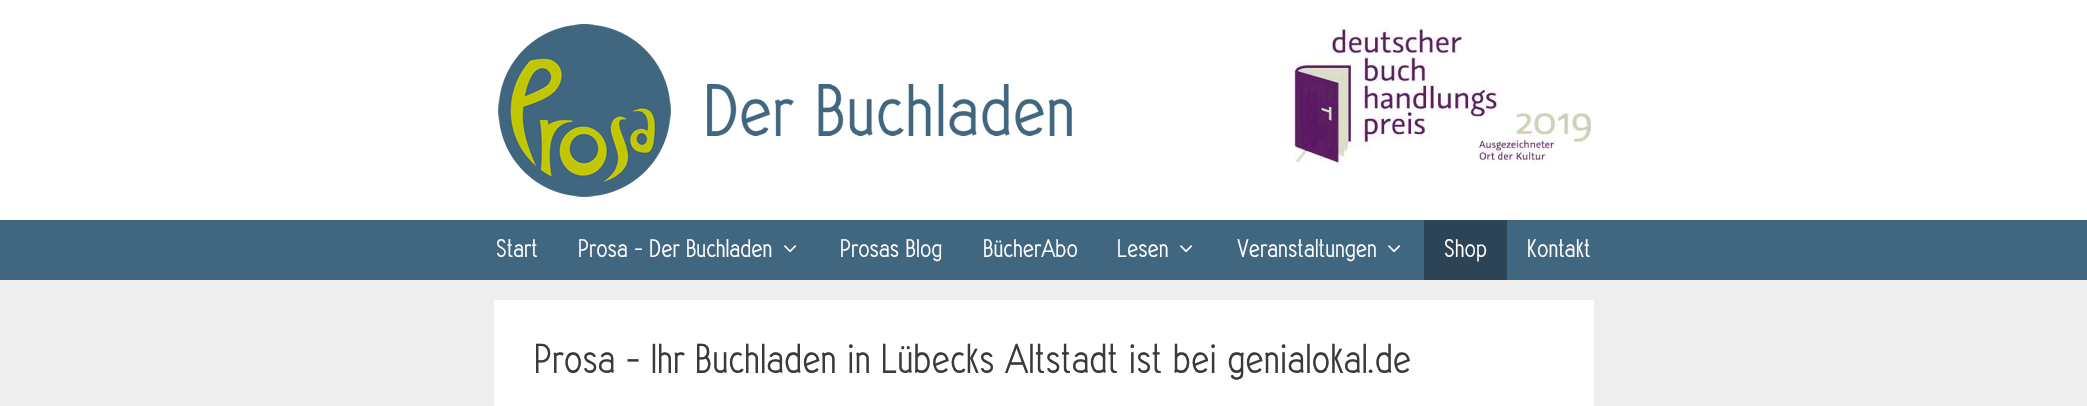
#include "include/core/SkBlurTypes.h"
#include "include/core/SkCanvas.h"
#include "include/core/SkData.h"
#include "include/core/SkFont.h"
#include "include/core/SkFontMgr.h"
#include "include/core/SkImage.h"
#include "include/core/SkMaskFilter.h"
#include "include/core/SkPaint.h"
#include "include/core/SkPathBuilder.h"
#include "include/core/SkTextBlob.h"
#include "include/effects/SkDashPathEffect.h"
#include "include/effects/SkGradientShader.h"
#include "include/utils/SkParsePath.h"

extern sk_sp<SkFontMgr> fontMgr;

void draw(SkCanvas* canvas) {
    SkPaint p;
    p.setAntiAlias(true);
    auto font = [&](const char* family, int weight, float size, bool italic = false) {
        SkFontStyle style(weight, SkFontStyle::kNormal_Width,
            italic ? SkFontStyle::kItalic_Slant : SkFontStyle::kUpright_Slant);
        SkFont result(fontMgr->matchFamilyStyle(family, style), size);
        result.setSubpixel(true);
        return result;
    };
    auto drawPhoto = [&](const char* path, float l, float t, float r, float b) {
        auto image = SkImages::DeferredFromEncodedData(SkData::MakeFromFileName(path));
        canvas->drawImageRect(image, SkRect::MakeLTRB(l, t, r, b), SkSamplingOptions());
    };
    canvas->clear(0xFFEFEFEF);
    p.setColor(0xFFFFFFFF);
    canvas->drawRect(SkRect::MakeLTRB(0, 0, 2087, 220), p);
    drawPhoto("media/1.png", 498, 24, 1072, 197);
    drawPhoto("media/2.png", 1294, 20, 1594, 164);
    p.setColor(0xFF416680);
    canvas->drawRect(SkRect::MakeLTRB(0, 220, 2087, 280), p);
    auto font1 = font("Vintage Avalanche", 400, 22);
    p.setColor(0xFFFFFFFF);
    canvas->drawString("Start", 496, 257, font1, p);
    canvas->drawString("Prosa – Der Buchladen", 578, 257, font1, p);
    drawPhoto("media/3.png", 784, 245, 797, 253);
    {
        const struct { const char* s; float x, y; } items[] = {
            {"Prosas Blog", 840, 257},
            {"BücherAbo", 983, 257},
            {"Lesen", 1117, 257},
        };
        for (auto [s, x, y] : items) {
            canvas->drawString(s, x, y, font1, p);
        }
    }
    drawPhoto("media/3.png", 1180, 245, 1193, 253);
    canvas->drawString("Veranstaltungen", 1237, 257, font1, p);
    drawPhoto("media/3.png", 1388, 245, 1401, 253);
    p.setColor(0xFF2C4456);
    canvas->drawRect(SkRect::MakeLTRB(1424, 220, 1507, 280), p);
    p.setColor(0xFFFFFFFF);
    canvas->drawString("Shop", 1444, 257, font1, p);
    canvas->drawString("Kontakt", 1527, 257, font1, p);
    canvas->drawRect(SkRect::MakeLTRB(494, 300, 1594, 406), p);
    auto font2 = font("Vintage Avalanche", 400, 36);
    p.setColor(0xFF3A3A3A);
    canvas->drawString("Prosa – Ihr Buchladen in Lübecks Altstadt ist bei genialokal.de", 534, 373, font2, p);
}
